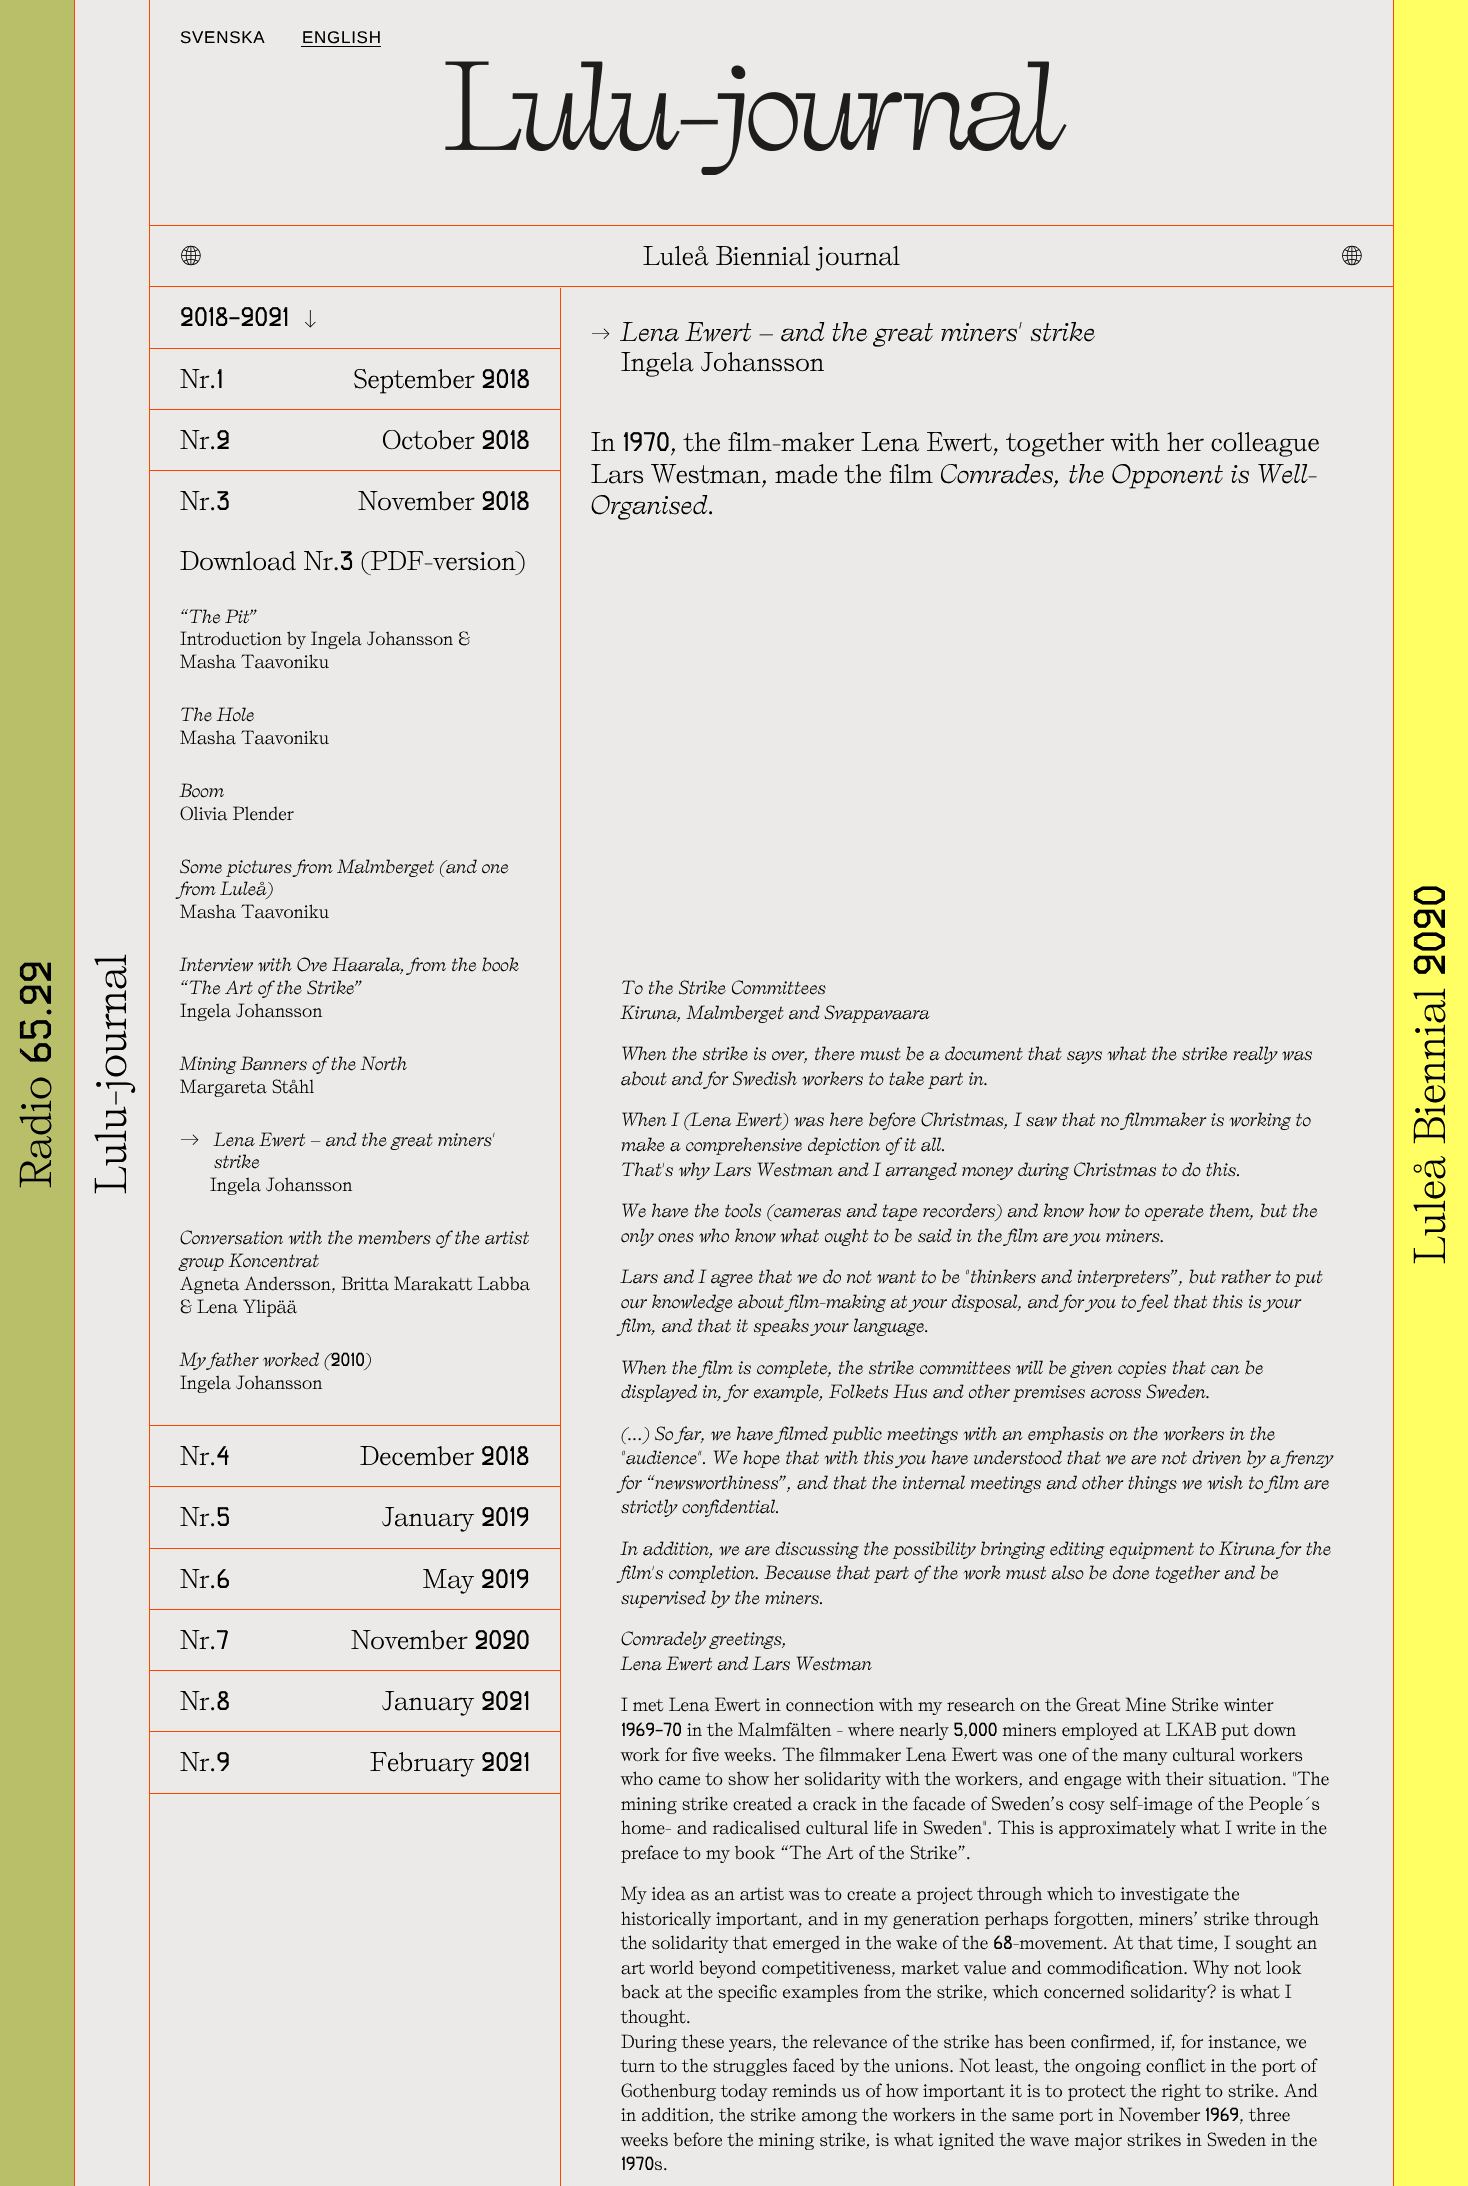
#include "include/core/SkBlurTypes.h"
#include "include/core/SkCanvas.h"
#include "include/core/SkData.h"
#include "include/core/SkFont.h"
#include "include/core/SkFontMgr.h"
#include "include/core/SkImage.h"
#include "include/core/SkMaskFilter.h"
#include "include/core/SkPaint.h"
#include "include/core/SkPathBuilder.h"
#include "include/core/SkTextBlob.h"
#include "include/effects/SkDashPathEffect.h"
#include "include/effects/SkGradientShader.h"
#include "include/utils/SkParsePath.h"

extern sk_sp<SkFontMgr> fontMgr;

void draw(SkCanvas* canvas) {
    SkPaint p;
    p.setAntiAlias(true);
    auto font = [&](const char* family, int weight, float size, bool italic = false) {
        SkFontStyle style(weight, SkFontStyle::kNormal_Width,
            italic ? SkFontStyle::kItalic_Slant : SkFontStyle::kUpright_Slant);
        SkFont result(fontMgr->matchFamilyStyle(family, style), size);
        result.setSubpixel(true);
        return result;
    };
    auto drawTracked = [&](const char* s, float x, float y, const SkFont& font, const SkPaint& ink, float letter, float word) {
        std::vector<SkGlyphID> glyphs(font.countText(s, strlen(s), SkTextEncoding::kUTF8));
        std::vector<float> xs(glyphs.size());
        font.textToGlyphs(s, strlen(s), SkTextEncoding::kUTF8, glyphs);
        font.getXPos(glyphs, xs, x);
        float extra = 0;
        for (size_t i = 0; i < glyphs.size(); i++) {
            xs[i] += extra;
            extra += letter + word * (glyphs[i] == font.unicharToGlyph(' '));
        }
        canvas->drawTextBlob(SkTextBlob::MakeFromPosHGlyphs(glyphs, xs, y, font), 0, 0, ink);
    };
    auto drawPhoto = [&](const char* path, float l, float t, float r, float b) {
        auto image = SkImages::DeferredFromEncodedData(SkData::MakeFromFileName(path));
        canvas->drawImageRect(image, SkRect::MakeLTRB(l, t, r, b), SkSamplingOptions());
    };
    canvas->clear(0xFFECE9E9);
    p.setColor(0xFFB9BF69);
    canvas->drawRect(SkRect::MakeLTRB(0, 0, 74, 2186), p);
    p.setColor(0xFFFF4600);
    canvas->drawRect(SkRect::MakeLTRB(74, 0, 75, 2186), p);
    auto font1 = font("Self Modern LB", 400, 40);
    p.setColor(0xFF000000);
    canvas->save();
    canvas->rotate(-90, 51, 1188);
    canvas->drawString("Radio 65.22", 51, 1188, font1, p);
    canvas->restore();
    canvas->save();
    canvas->rotate(-90, 126, 1194);
    canvas->drawString("Lulu-journal", 126, 1194, font1, p);
    canvas->restore();
    {
        const struct { float l, t, r, b; SkColor color; } items[] = {
            {1393, 0, 1394, 2186, 0xFFFF4600},
            {149, 0, 150, 2186, 0xFFFF4600},
            {150, 286, 1393, 287, 0xFFFF4600},
        };
        for (auto [l, t, r, b, color] : items) {
            p.setColor(color);
            canvas->drawRect(SkRect::MakeLTRB(l, t, r, b), p);
        }
    }
    auto font2 = font("Liberation Sans", 400, 16.95f);
    p.setColor(0xFF000000);
    drawTracked("SVENSKA", 180, 43, font2, p, 0.75f, 0);
    drawTracked("ENGLISH", 302, 43, font2, p, 0.75f, 0);
    canvas->drawRect(SkRect::MakeLTRB(301, 46, 381, 47), p);
    drawPhoto("media/1.png", 445, 61, 1067, 175);
    p.setColor(0xFFFF4600);
    canvas->drawRect(SkRect::MakeLTRB(150, 225, 1393, 226), p);
    auto font3 = font("Self Modern LB", 400, 24.25f);
    p.setColor(0xFF000000);
    {
        const struct { const char* s; float x, y; } items[] = {
            {"☼", 180, 265},
            {"Luleå Biennial journal", 643, 265},
            {"☼", 1341, 265},
        };
        for (auto [s, x, y] : items) {
            canvas->drawString(s, x, y, font3, p);
        }
    }
    p.setColor(0xFFFF4600);
    canvas->drawRect(SkRect::MakeLTRB(150, 348, 560, 349), p);
    auto font4 = font("Self Modern LB", 400, 24.2f);
    p.setColor(0xFF000000);
    canvas->drawString("2018~2021", 180, 326, font4, p);
    canvas->drawString("↓", 304, 326, font4, p);
    p.setColor(0xFFFF4600);
    canvas->drawRect(SkRect::MakeLTRB(150, 409, 560, 410), p);
    p.setColor(0xFF000000);
    canvas->drawString("Nr.1", 180, 388, font4, p);
    canvas->drawString("September 2018", 353, 388, font4, p);
    p.setColor(0xFFFF4600);
    canvas->drawRect(SkRect::MakeLTRB(150, 470, 560, 471), p);
    p.setColor(0xFF000000);
    canvas->drawString("Nr.2", 180, 449, font4, p);
    canvas->drawString("October 2018", 382, 449, font4, p);
    p.setColor(0xFFFF4600);
    canvas->drawRect(SkRect::MakeLTRB(150, 1425, 560, 1426), p);
    p.setColor(0xFF000000);
    {
        const struct { const char* s; float x, y; } items[] = {
            {"Nr.3", 180, 510},
            {"November 2018", 358, 510},
            {"Download Nr.3 (PDF-version)", 180, 570},
        };
        for (auto [s, x, y] : items) {
            canvas->drawString(s, x, y, font4, p);
        }
    }
    auto font5 = font("Self Modern LB", 300, 16.95f, true);
    canvas->drawString("“The Pit”", 180, 623, font5, p);
    auto font6 = font("Self Modern LB", 400, 16.95f);
    canvas->drawString("Introduction by Ingela Johansson &", 180, 645, font6, p);
    canvas->drawString("Masha Taavoniku", 180, 668, font6, p);
    canvas->drawString("The Hole", 180, 721, font5, p);
    canvas->drawString("Masha Taavoniku", 180, 744, font6, p);
    canvas->drawString("Boom", 180, 797, font5, p);
    canvas->drawString("Olivia Plender", 180, 820, font6, p);
    canvas->drawString("Some pictures from Malmberget (and one", 180, 873, font5, p);
    canvas->drawString("from Luleå)", 180, 895, font5, p);
    canvas->drawString("Masha Taavoniku", 180, 918, font6, p);
    canvas->drawString("Interview with Ove Haarala, from the book", 180, 971, font5, p);
    canvas->drawString("“The Art of the Strike”", 180, 994, font5, p);
    canvas->drawString("Ingela Johansson", 180, 1017, font6, p);
    canvas->drawString("Mining Banners of the North", 180, 1070, font5, p);
    canvas->drawString("Margareta Ståhl", 180, 1093, font6, p);
    canvas->drawString("→", 180, 1147, font4, p);
    canvas->drawString("Lena Ewert – and the great miners'", 214, 1146, font5, p);
    canvas->drawString("strike", 214, 1168, font5, p);
    canvas->drawString("Ingela Johansson", 210, 1191, font6, p);
    canvas->drawString("Conversation with the members of the artist", 180, 1244, font5, p);
    canvas->drawString("group Koncentrat", 180, 1267, font5, p);
    canvas->drawString("Agneta Andersson, Britta Marakatt Labba", 180, 1290, font6, p);
    canvas->drawString("& Lena Ylipää", 180, 1313, font6, p);
    canvas->drawString("My father worked (2010)", 180, 1366, font5, p);
    canvas->drawString("Ingela Johansson", 180, 1389, font6, p);
    p.setColor(0xFFFF4600);
    canvas->drawRect(SkRect::MakeLTRB(150, 1486, 560, 1487), p);
    p.setColor(0xFF000000);
    canvas->drawString("Nr.4", 180, 1465, font4, p);
    canvas->drawString("December 2018", 360, 1465, font4, p);
    p.setColor(0xFFFF4600);
    canvas->drawRect(SkRect::MakeLTRB(150, 1548, 560, 1549), p);
    p.setColor(0xFF000000);
    canvas->drawString("Nr.5", 180, 1526, font4, p);
    canvas->drawString("January 2019", 382, 1526, font4, p);
    p.setColor(0xFFFF4600);
    canvas->drawRect(SkRect::MakeLTRB(150, 1609, 560, 1610), p);
    p.setColor(0xFF000000);
    canvas->drawString("Nr.6", 180, 1588, font4, p);
    canvas->drawString("May 2019", 423, 1588, font4, p);
    p.setColor(0xFFFF4600);
    canvas->drawRect(SkRect::MakeLTRB(150, 1670, 560, 1671), p);
    p.setColor(0xFF000000);
    canvas->drawString("Nr.7", 180, 1649, font4, p);
    canvas->drawString("November 2020", 351, 1649, font4, p);
    p.setColor(0xFFFF4600);
    canvas->drawRect(SkRect::MakeLTRB(150, 1731, 560, 1732), p);
    p.setColor(0xFF000000);
    canvas->drawString("Nr.8", 180, 1710, font4, p);
    canvas->drawString("January 2021", 382, 1710, font4, p);
    p.setColor(0xFFFF4600);
    canvas->drawRect(SkRect::MakeLTRB(150, 1793, 560, 1794), p);
    p.setColor(0xFF000000);
    canvas->drawString("Nr.9", 180, 1771, font4, p);
    canvas->drawString("February 2021", 370, 1771, font4, p);
    p.setColor(0xFFFF4600);
    canvas->drawRect(SkRect::MakeLTRB(560, 288, 561, 2186), p);
    p.setColor(0xFF000000);
    canvas->drawString("→", 591, 341, font4, p);
    auto font7 = font("Self Modern LB", 300, 24.2f, true);
    canvas->drawString("Lena Ewert – and the great miners' strike", 621, 341, font7, p);
    {
        const struct { const char* s; float x, y; } items[] = {
            {"Ingela Johansson", 621, 371},
            {"In 1970, the film-maker Lena Ewert, together with her colleague", 591, 451},
            {"Lars Westman, made the film", 591, 483},
        };
        for (auto [s, x, y] : items) {
            canvas->drawString(s, x, y, font4, p);
        }
    }
    canvas->drawString("Comrades, the Opponent is Well-", 940, 483, font7, p);
    canvas->drawString("Organised", 591, 514, font7, p);
    canvas->drawString(".", 707, 514, font4, p);
    {
        const struct { const char* s; float x, y; } items[] = {
            {"To the Strike Committees", 621, 994},
            {"Kiruna, Malmberget and Svappavaara", 621, 1019},
            {"When the strike is over, there must be a document that says what the strike really was", 621, 1060},
            {"about and for Swedish workers to take part in.", 621, 1085},
            {"When I (Lena Ewert) was here before Christmas, I saw that no filmmaker is working to", 621, 1126},
            {"make a comprehensive depiction of it all.", 621, 1151},
            {"That's why Lars Westman and I arranged money during Christmas to do this.", 621, 1176},
            {"We have the tools (cameras and tape recorders) and know how to operate them, but the", 621, 1217},
            {"only ones who know what ought to be said in the film are you miners.", 621, 1242},
            {"Lars and I agree that we do not want to be \"thinkers and interpreters”, but rather to put", 621, 1283},
            {"our knowledge about film-making at your disposal, and for you to feel that this is your", 621, 1308},
            {"film, and that it speaks your language.", 621, 1332},
            {"When the film is complete, the strike committees will be given copies that can be", 621, 1374},
            {"displayed in, for example, Folkets Hus and other premises across Sweden.", 621, 1398},
            {"(...) So far, we have filmed public meetings with an emphasis on the workers in the", 621, 1440},
            {"\"audience\". We hope that with this you have understood that we are not driven by a frenzy", 621, 1464},
            {"for “newsworthiness”, and that the internal meetings and other things we wish to film are", 621, 1489},
            {"strictly confidential.", 621, 1513},
            {"In addition, we are discussing the possibility bringing editing equipment to Kiruna for the", 621, 1555},
            {"film's completion. Because that part of the work must also be done together and be", 621, 1579},
            {"supervised by the miners.", 621, 1604},
            {"Comradely greetings,", 621, 1645},
            {"Lena Ewert and Lars Westman", 621, 1670},
        };
        for (auto [s, x, y] : items) {
            canvas->drawString(s, x, y, font5, p);
        }
    }
    {
        const struct { const char* s; float x, y; } items[] = {
            {"I met Lena Ewert in connection with my research on the Great Mine Strike winter", 621, 1711},
            {"1969~70 in the Malmfälten - where nearly 5,000 miners employed at LKAB put down", 621, 1736},
            {"work for five weeks. The filmmaker Lena Ewert was one of the many cultural workers", 621, 1761},
            {"who came to show her solidarity with the workers, and engage with their situation. \"The", 621, 1785},
            {"mining strike created a crack in the facade of Sweden’s cosy self-image of the People´s", 621, 1810},
            {"home- and radicalised cultural life in Sweden\". This is approximately what I write in the", 621, 1834},
            {"preface to my book “The Art of the Strike”.", 621, 1859},
            {"My idea as an artist was to create a project through which to investigate the", 621, 1900},
            {"historically important, and in my generation perhaps forgotten, miners’ strike through", 621, 1925},
            {"the solidarity that emerged in the wake of the 68-movement. At that time, I sought an", 621, 1949},
            {"art world beyond competitiveness, market value and commodification. Why not look", 621, 1974},
            {"back at the specific examples from the strike, which concerned solidarity? is what I", 621, 1998},
            {"thought.", 621, 2023},
            {"During these years, the relevance of the strike has been confirmed, if, for instance, we", 621, 2048},
            {"turn to the struggles faced by the unions. Not least, the ongoing conflict in the port of", 621, 2072},
            {"Gothenburg today reminds us of how important it is to protect the right to strike. And", 621, 2097},
            {"in addition, the strike among the workers in the same port in November 1969, three", 621, 2121},
            {"weeks before the mining strike, is what ignited the wave major strikes in Sweden in the", 621, 2146},
            {"1970s.", 621, 2170},
        };
        for (auto [s, x, y] : items) {
            canvas->drawString(s, x, y, font6, p);
        }
    }
    p.setColor(0xFFFFFF64);
    canvas->drawRect(SkRect::MakeLTRB(1394, 0, 1468, 2186), p);
    p.setColor(0xFF000000);
    canvas->save();
    canvas->rotate(-90, 1445, 1264);
    canvas->drawString("Luleå Biennial 2020", 1445, 1264, font1, p);
    canvas->restore();
}
